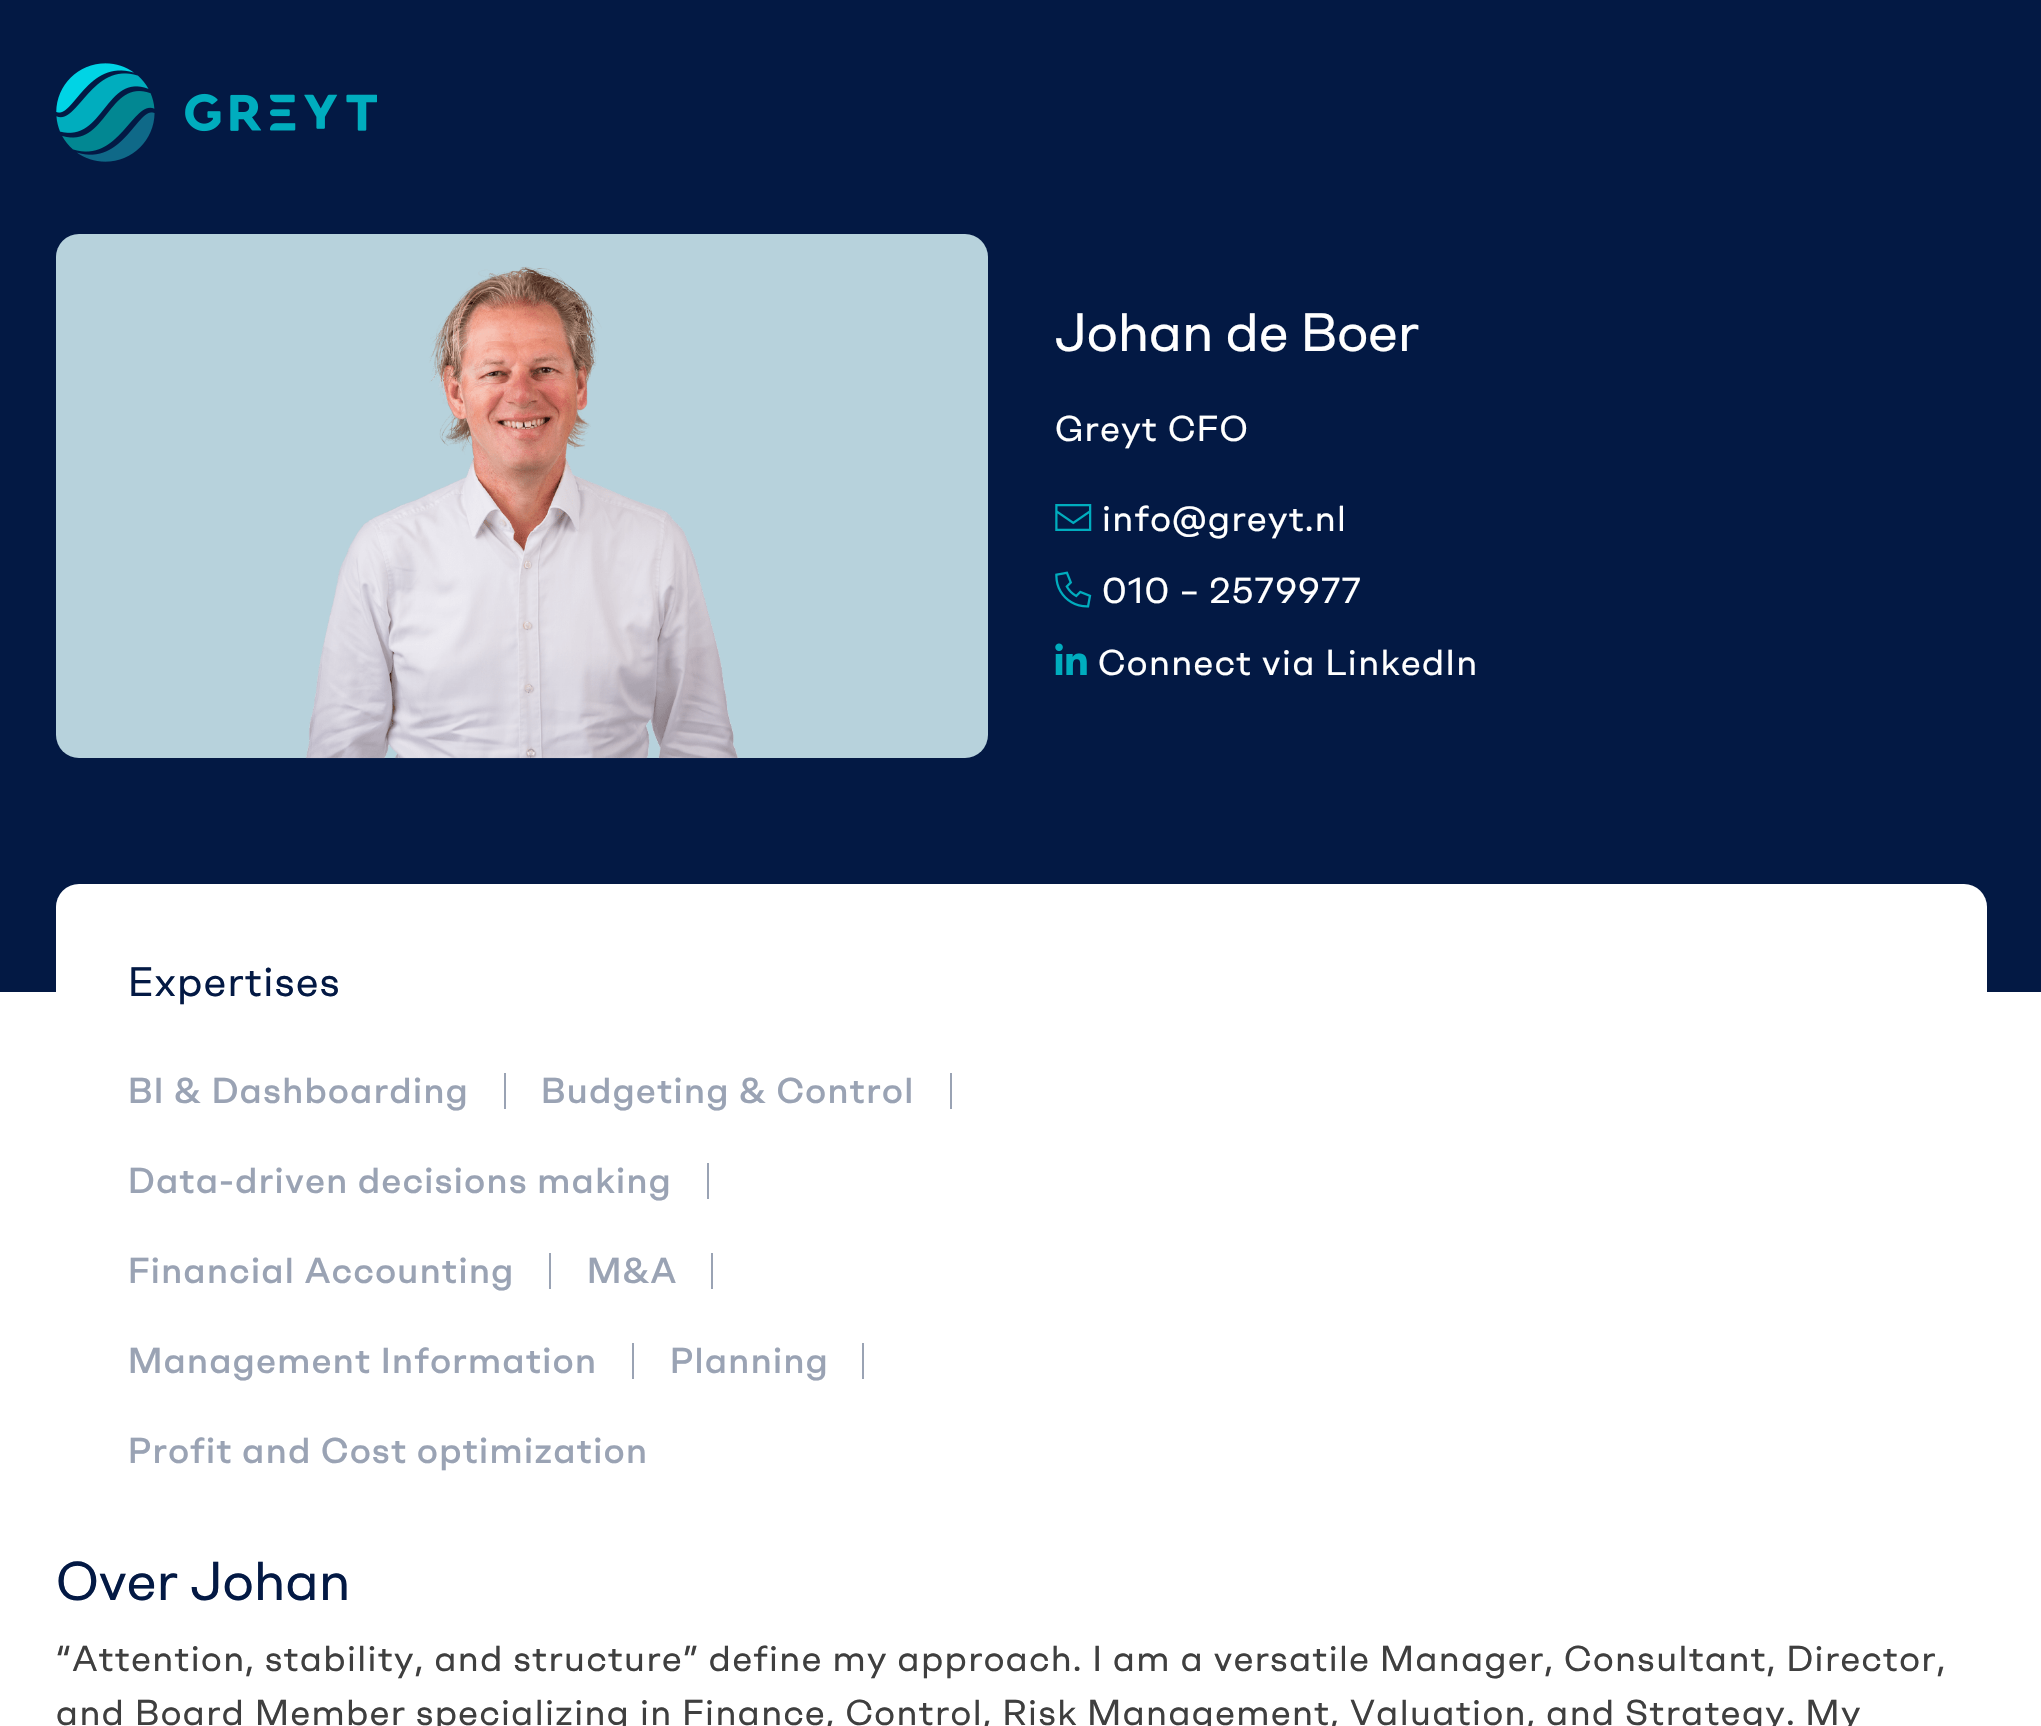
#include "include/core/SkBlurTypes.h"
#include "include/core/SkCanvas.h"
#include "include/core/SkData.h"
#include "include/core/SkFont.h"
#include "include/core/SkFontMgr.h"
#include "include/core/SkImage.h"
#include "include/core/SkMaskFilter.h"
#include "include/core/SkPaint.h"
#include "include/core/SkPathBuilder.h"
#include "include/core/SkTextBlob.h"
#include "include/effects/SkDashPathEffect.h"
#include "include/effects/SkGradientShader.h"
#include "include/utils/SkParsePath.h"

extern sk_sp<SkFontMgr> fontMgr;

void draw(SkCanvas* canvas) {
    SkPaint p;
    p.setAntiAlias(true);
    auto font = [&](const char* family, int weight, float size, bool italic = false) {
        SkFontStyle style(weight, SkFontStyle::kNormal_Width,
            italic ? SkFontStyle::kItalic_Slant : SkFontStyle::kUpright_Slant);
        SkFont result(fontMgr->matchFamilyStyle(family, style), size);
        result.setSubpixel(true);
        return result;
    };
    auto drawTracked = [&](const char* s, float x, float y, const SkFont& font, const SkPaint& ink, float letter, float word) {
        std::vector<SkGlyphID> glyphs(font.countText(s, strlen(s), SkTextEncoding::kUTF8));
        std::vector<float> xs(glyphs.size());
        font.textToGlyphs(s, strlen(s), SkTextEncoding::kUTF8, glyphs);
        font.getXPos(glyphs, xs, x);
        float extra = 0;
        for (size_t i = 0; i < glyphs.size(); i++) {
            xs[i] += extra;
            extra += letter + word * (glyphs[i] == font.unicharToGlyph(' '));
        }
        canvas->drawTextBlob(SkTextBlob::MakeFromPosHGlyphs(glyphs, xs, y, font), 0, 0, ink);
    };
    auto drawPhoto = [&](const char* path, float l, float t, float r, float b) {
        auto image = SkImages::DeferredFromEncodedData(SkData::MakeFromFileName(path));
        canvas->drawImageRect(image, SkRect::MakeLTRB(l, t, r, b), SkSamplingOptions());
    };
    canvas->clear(0xFFFFFFFF);
    p.setColor(0xFF031944);
    canvas->drawRect(SkRect::MakeLTRB(0, 0, 2041, 992), p);
    drawPhoto("media/1.png", 56, 63, 377, 162);
    p.setColor(0xFFB7D2DC);
    canvas->drawRoundRect(SkRect::MakeLTRB(56, 234, 988, 758), 23, 23, p);
    drawPhoto("media/2.png", 306, 266, 739, 759);
    auto font1 = font("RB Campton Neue", 400, 54);
    p.setColor(0xFFFFFFFF);
    canvas->drawString("Johan de Boer", 1055, 351, font1, p);
    auto font2 = font("RB Campton Neue", 400, 36);
    drawTracked("Greyt CFO", 1055, 441, font2, p, 1.44f, 0);
    drawPhoto("media/3.png", 1055, 504, 1092, 531);
    drawTracked("info@greyt.nl", 1102, 531, font2, p, 1.44f, 0);
    drawPhoto("media/4.png", 1055, 571, 1092, 608);
    drawTracked("010 – 2579977", 1102, 603, font2, p, 1.44f, 0);
    drawPhoto("media/5.png", 1055, 643, 1087, 675);
    drawTracked("Connect via LinkedIn", 1098, 675, font2, p, 1.44f, 0);
    canvas->drawRoundRect(SkRect::MakeLTRB(56, 884, 1987, 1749), 23, 23, p);
    auto font3 = font("RB Campton Neue", 400, 41);
    p.setColor(0xFF031944);
    drawTracked("Expertises", 128, 996, font3, p, 1.44f, 0);
    auto font4 = font("RB Campton Neue", 500, 36);
    p.setColor(0xFF9AA3B4);
    drawTracked("BI & Dashboarding", 128, 1103, font4, p, 1.44f, 0);
    canvas->drawRect(SkRect::MakeLTRB(504, 1073, 506, 1109), p);
    drawTracked("Budgeting & Control", 541, 1103, font4, p, 1.44f, 0);
    canvas->drawRect(SkRect::MakeLTRB(950, 1073, 952, 1109), p);
    drawTracked("Data-driven decisions making", 128, 1193, font4, p, 1.44f, 0);
    canvas->drawRect(SkRect::MakeLTRB(707, 1163, 709, 1199), p);
    drawTracked("Financial Accounting", 128, 1283, font4, p, 1.44f, 0);
    canvas->drawRect(SkRect::MakeLTRB(549, 1253, 551, 1289), p);
    drawTracked("M&A", 587, 1283, font4, p, 1.44f, 0);
    canvas->drawRect(SkRect::MakeLTRB(711, 1253, 713, 1289), p);
    drawTracked("Management Information", 128, 1373, font4, p, 1.44f, 0);
    canvas->drawRect(SkRect::MakeLTRB(632, 1343, 634, 1379), p);
    drawTracked("Planning", 670, 1373, font4, p, 1.44f, 0);
    canvas->drawRect(SkRect::MakeLTRB(862, 1343, 864, 1379), p);
    drawTracked("Profit and Cost optimization", 128, 1463, font4, p, 1.44f, 0);
    auto font5 = font("RB Campton Neue", 400, 54.5f);
    p.setColor(0xFF031944);
    canvas->drawString("Over Johan", 56, 1600, font5, p);
    p.setColor(0xFF3F3F3F);
    drawTracked("“Attention, stability, and structure” define my approach. I am a versatile Manager, Consultant, Director,", 56, 1671, font2, p, 1.44f, 0);
    drawTracked("and Board Member specializing in Finance, Control, Risk Management, Valuation, and Strategy. My", 56, 1725, font2, p, 1.44f, 0);
}
